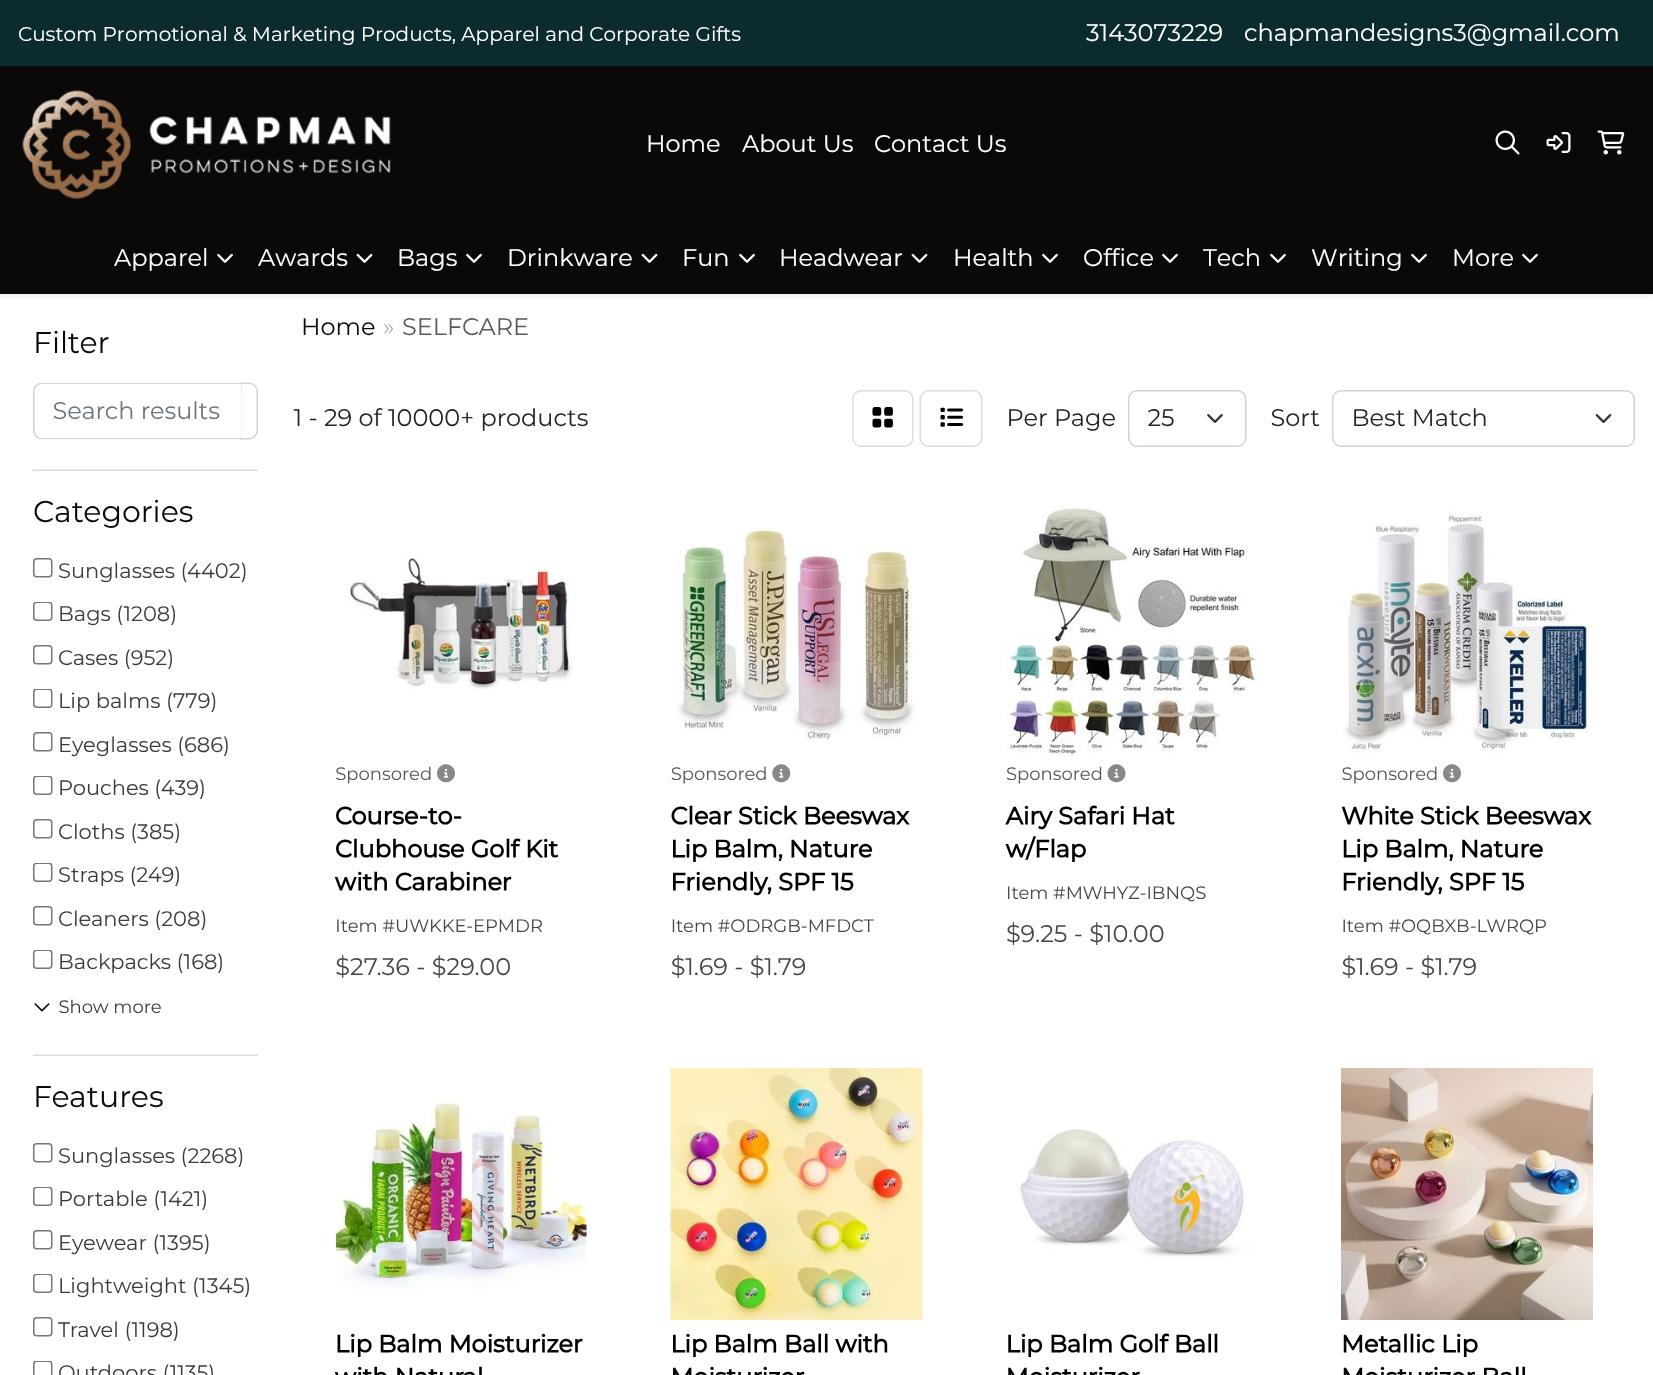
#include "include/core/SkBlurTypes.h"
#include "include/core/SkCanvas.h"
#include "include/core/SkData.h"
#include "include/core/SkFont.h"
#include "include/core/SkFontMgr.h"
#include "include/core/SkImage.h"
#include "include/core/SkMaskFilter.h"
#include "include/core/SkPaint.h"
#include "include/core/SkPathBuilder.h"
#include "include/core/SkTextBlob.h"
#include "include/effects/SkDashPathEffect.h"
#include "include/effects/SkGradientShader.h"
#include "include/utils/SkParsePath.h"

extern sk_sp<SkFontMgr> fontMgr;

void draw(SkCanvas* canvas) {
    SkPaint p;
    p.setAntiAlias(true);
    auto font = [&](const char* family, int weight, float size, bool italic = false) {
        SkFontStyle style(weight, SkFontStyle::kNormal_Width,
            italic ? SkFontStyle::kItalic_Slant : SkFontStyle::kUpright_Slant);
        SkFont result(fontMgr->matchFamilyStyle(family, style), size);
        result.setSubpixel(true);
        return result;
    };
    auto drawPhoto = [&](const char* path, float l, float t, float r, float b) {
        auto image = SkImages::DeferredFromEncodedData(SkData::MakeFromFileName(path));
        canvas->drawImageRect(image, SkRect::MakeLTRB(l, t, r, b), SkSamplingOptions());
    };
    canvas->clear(0xFFFFFFFF);
    p.setColor(0xFF0A0908);
    canvas->drawRect(SkRect::MakeLTRB(0, 66, 1653, 294), p);
    p.setColor(0xFF0B2B2E);
    canvas->drawRect(SkRect::MakeLTRB(0, 0, 1653, 66), p);
    auto font1 = font("Montserrat", 100, 20);
    p.setColor(0xFFFFFFFF);
    canvas->drawString("Custom Promotional & Marketing Products, Apparel and Corporate Gifts", 18, 41, font1, p);
    auto font2 = font("Montserrat", 100, 24);
    canvas->drawString("3143073229", 1086, 41, font2, p);
    canvas->drawString("chapmandesigns3@gmail.com", 1244, 41, font2, p);
    drawPhoto("media/1.png", 22, 90, 391, 199);
    {
        const struct { const char* s; float x, y; } items[] = {
            {"Home", 646, 152},
            {"About Us", 742, 152},
            {"Contact Us", 874, 152},
        };
        for (auto [s, x, y] : items) {
            canvas->drawString(s, x, y, font2, p);
        }
    }
    drawPhoto("media/2.png", 1495, 130, 1520, 155);
    drawPhoto("media/3.png", 1546, 132, 1571, 153);
    drawPhoto("media/4.png", 1597, 130, 1625, 155);
    canvas->save();
    canvas->clipRect(SkRect::MakeLTRB(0, 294, 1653, 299));
    p.setColor(0x12000000);
    p.setMaskFilter(SkMaskFilter::MakeBlur(kNormal_SkBlurStyle, 3));
    canvas->drawRect(SkRect::MakeLTRB(0, 225, 1653, 297), p);
    p.setMaskFilter(nullptr);
    canvas->restore();
    p.setColor(0xFFFFFFFF);
    canvas->drawString("Apparel", 114, 266, font2, p);
    drawPhoto("media/5.png", 217, 253, 233, 263);
    canvas->drawString("Awards", 258, 266, font2, p);
    drawPhoto("media/6.png", 356, 253, 373, 263);
    canvas->drawString("Bags", 397, 266, font2, p);
    drawPhoto("media/5.png", 466, 253, 482, 263);
    canvas->drawString("Drinkware", 507, 266, font2, p);
    drawPhoto("media/6.png", 641, 253, 658, 263);
    canvas->drawString("Fun", 682, 266, font2, p);
    drawPhoto("media/5.png", 739, 253, 755, 263);
    canvas->drawString("Headwear", 779, 266, font2, p);
    drawPhoto("media/6.png", 911, 253, 928, 263);
    canvas->drawString("Health", 953, 266, font2, p);
    drawPhoto("media/5.png", 1042, 253, 1058, 263);
    canvas->drawString("Office", 1083, 266, font2, p);
    drawPhoto("media/5.png", 1162, 253, 1178, 263);
    canvas->drawString("Tech", 1203, 266, font2, p);
    drawPhoto("media/5.png", 1270, 253, 1286, 263);
    canvas->drawString("Writing", 1311, 266, font2, p);
    drawPhoto("media/5.png", 1411, 253, 1427, 263);
    canvas->drawString("More", 1452, 266, font2, p);
    drawPhoto("media/5.png", 1522, 253, 1538, 263);
    drawPhoto("media/7.png", 33, 318, 1635, 1375);
}
